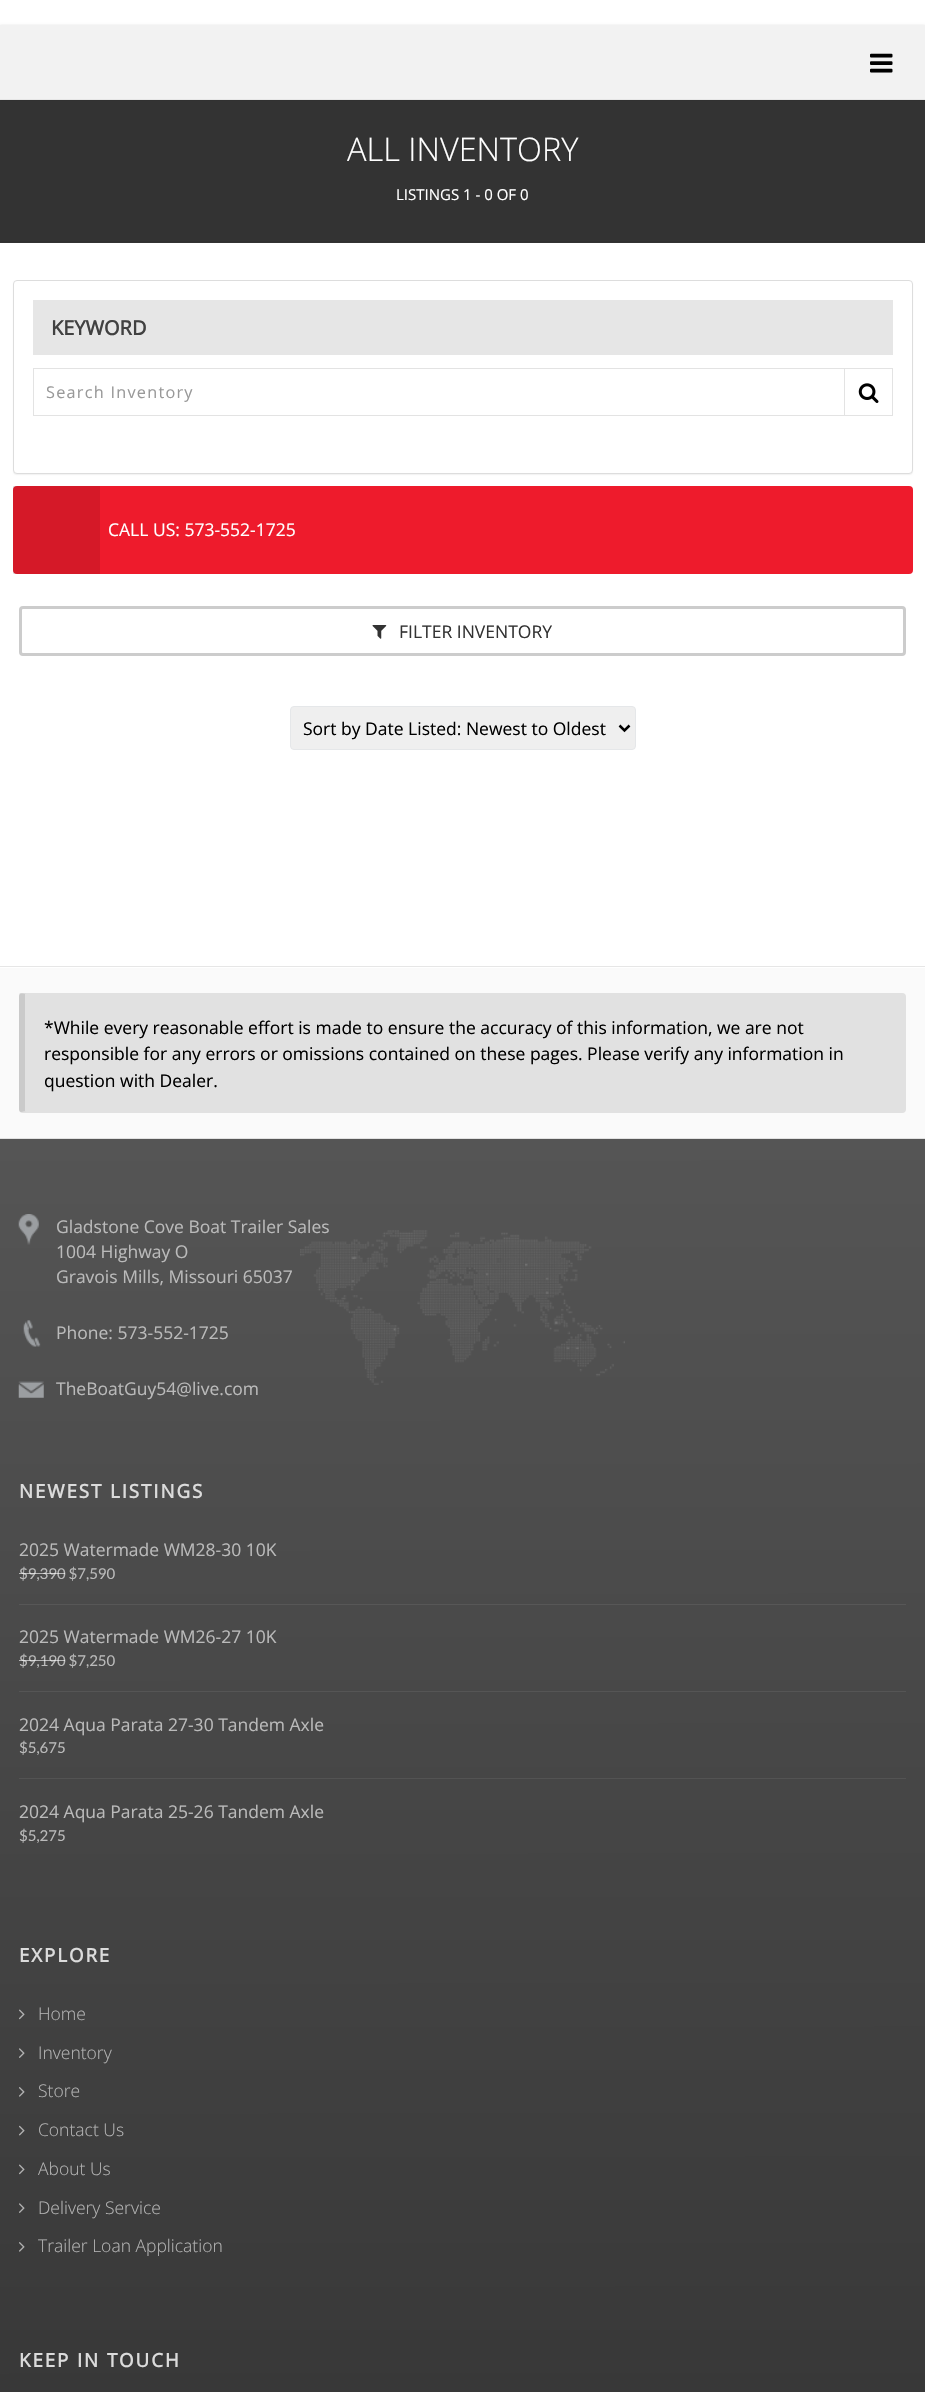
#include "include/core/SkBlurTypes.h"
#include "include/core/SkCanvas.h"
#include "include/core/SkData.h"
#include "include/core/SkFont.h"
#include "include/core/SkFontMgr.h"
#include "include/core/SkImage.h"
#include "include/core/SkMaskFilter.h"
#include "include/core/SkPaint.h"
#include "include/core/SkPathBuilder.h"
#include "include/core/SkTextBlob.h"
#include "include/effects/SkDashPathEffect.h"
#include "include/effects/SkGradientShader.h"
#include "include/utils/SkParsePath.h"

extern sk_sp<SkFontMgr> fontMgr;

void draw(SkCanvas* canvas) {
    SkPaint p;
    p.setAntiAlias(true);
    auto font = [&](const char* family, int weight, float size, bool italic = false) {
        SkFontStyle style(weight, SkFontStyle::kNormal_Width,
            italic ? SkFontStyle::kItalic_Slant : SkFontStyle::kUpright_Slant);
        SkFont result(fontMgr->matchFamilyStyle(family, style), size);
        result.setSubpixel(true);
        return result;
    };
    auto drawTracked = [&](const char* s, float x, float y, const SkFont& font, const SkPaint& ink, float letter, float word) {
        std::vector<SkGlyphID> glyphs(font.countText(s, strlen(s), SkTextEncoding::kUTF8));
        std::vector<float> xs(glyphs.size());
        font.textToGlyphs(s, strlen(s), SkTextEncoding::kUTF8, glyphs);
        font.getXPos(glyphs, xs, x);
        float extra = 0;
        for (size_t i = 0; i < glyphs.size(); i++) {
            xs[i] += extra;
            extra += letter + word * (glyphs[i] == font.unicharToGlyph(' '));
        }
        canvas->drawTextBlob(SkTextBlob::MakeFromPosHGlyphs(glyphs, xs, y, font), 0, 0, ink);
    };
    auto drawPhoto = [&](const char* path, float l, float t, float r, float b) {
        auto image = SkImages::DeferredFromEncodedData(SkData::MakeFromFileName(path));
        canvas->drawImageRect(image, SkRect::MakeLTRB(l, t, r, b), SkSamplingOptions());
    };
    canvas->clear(0xFFFFFFFF);
    p.setColor(0xFF333333);
    canvas->drawRect(SkRect::MakeLTRB(0, 100, 925, 243), p);
    p.setColor(0x1A000000);
    p.setMaskFilter(SkMaskFilter::MakeBlur(kNormal_SkBlurStyle, 1));
    canvas->drawRect(SkRect::MakeLTRB(0, 25, 925, 100), p);
    p.setMaskFilter(nullptr);
    p.setColor(0xFFF2F2F2);
    canvas->drawRect(SkRect::MakeLTRB(0, 25, 925, 99), p);
    p.setColor(0xFFE6E6E6);
    canvas->drawRect(SkRect::MakeLTRB(0, 99, 925, 100), p);
    drawPhoto("media/1.png", 870, 53, 893, 73);
    p.setColor(0xFF303030);
    canvas->drawRect(SkRect::MakeLTRB(0, 241, 925, 242), p);
    auto font1 = font("Open Sans", 300, 32.5f);
    p.setColor(0xFFFFFFFF);
    canvas->drawString("ALL INVENTORY", 347, 161, font1, p);
    auto font2 = font("Open Sans", 400, 15);
    canvas->drawString("LISTINGS 1 - 0 OF 0", 396, 200, font2, p);
    p.setColor(0xFFE6E6E6);
    canvas->drawRect(SkRect::MakeLTRB(0, 966, 925, 967), p);
    p.setColor(0x0D000000);
    p.setMaskFilter(SkMaskFilter::MakeBlur(kNormal_SkBlurStyle, 0.5f));
    canvas->drawRoundRect(SkRect::MakeLTRB(13, 281, 913, 475), 4, 4, p);
    p.setMaskFilter(nullptr);
    p.setColor(0xFFFFFFFF);
    canvas->drawRoundRect(SkRect::MakeLTRB(13.5f, 280.5f, 912.5f, 473.5f), 3.5f, 3.5f, p);
    p.setStyle(SkPaint::kStroke_Style);
    p.setStrokeWidth(1);
    p.setColor(0xFFDDDDDD);
    canvas->drawRoundRect(SkRect::MakeLTRB(13.5f, 280.5f, 912.5f, 473.5f), 3.5f, 3.5f, p);
    p.setStyle(SkPaint::kFill_Style);
    p.setColor(0xFFE6E6E6);
    canvas->drawRect(SkRect::MakeLTRB(33, 300, 893, 355), p);
    auto font3 = font("Open Sans", 700, 20);
    p.setColor(0xFF414141);
    canvas->drawString("KEYWORD", 51, 335, font3, p);
    p.setStyle(SkPaint::kStroke_Style);
    p.setColor(0xFFE3E3E3);
    canvas->drawRect(SkRect::MakeLTRB(33.5f, 368.5f, 892.5f, 415.5f), p);
    auto font4 = font("Open Sans", 400, 16.25f);
    p.setStyle(SkPaint::kFill_Style);
    p.setColor(0xFF999999);
    drawTracked("Search Inventory", 46, 398, font4, p, 1.25f, 0);
    p.setColor(0xFFE3E3E3);
    canvas->drawRect(SkRect::MakeLTRB(844, 368, 845, 416), p);
    drawPhoto("media/2.png", 858, 383, 879, 403);
    p.setColor(0xFFEE1B2C);
    canvas->drawRoundRect(SkRect::MakeLTRB(13, 486, 913, 574), 4, 4, p);
    p.setColor(0x1A000000);
    canvas->drawRect(SkRect::MakeLTRB(13, 486, 100, 574), p);
    auto font5 = font("Open Sans", 400, 17.5f);
    p.setColor(0xFFFFFFFF);
    canvas->drawString("CALL US: 573-552-1725", 108, 536, font5, p);
    p.setStyle(SkPaint::kStroke_Style);
    p.setStrokeWidth(3);
    p.setColor(0xFFCCCCCC);
    canvas->drawRoundRect(SkRect::MakeLTRB(20.5f, 607.5f, 904.5f, 654.5f), 2.5f, 2.5f, p);
    drawPhoto("media/3.png", 372, 625, 387, 639);
    p.setStyle(SkPaint::kFill_Style);
    p.setColor(0xFF333333);
    canvas->drawString("FILTER INVENTORY", 399, 638, font5, p);
    p.setColor(0xFFEFEFEF);
    canvas->drawRoundRect(SkRect::MakeLTRB(290.5f, 706.5f, 635.5f, 749.5f), 3.5f, 3.5f, p);
    p.setStyle(SkPaint::kStroke_Style);
    p.setStrokeWidth(1);
    p.setColor(0xFFE5E7E9);
    canvas->drawRoundRect(SkRect::MakeLTRB(290.5f, 706.5f, 635.5f, 749.5f), 3.5f, 3.5f, p);
    p.setStrokeWidth(2.5f);
    p.setColor(0xFF000000);
    canvas->drawPath(SkPathBuilder().moveTo(619.5f, 725.5f).lineTo(624.5f, 730.5f).lineTo(629.5f, 725.5f).detach(), p);
    p.setStyle(SkPaint::kFill_Style);
    canvas->drawString("Sort by Date Listed: Newest to Oldest", 303, 735, font5, p);
    p.setColor(0xFFFAFAFA);
    canvas->drawRect(SkRect::MakeLTRB(0, 968, 925, 1138), p);
    p.setColor(0xFFE1E1E1);
    canvas->drawRect(SkRect::MakeLTRB(0, 1138, 925, 1139), p);
    canvas->drawRoundRect(SkRect::MakeLTRB(19, 993, 906, 1113), 4, 4, p);
    p.setColor(0x1A000000);
    canvas->drawPath(SkPathBuilder().moveTo(25, 994).lineTo(25, 1111).lineTo(26, 1111).lineTo(21, 1112).cubicTo(20, 1112, 19, 1111, 19, 1109).lineTo(19, 996).cubicTo(19, 995, 19, 994, 20, 993).lineTo(26, 994).close().detach(), p);
    p.setColor(0xFF000000);
    {
        const struct { const char* s; float x, y; } items[] = {
            {"*While every reasonable effort is made to ensure the accuracy of this information, we are not", 44, 1034},
            {"responsible for any errors or omissions contained on these pages. Please verify any information in", 44, 1060},
            {"question with Dealer.", 44, 1087},
        };
        for (auto [s, x, y] : items) {
            canvas->drawString(s, x, y, font5, p);
        }
    }
    {
        const SkColor colors[] = {0xFF555555, 0xFF313131};
        const float stops[] = {0, 1};
        const SkPoint ends[] = {{462, 1139}, {463, 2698}};
        p.setShader(SkGradientShader::MakeLinear(ends, colors, stops, 2, SkTileMode::kClamp));
        p.setAlpha(255);
    }
    canvas->drawRect(SkRect::MakeLTRB(0, 1139, 925, 2392), p);
    drawPhoto("media/4.png", 300, 1230, 625, 1385);
    drawPhoto("media/5.png", 18, 1214, 39, 1245);
    p.setShader(nullptr);
    p.setColor(0xFFBABABA);
    {
        const struct { const char* s; float x, y; } items[] = {
            {"Gladstone Cove Boat Trailer Sales", 56, 1233},
            {"1004 Highway O", 56, 1258},
            {"Gravois Mills, Missouri 65037", 56, 1283},
        };
        for (auto [s, x, y] : items) {
            canvas->drawString(s, x, y, font5, p);
        }
    }
    drawPhoto("media/6.png", 23, 1320, 41, 1347);
    canvas->drawString("Phone: 573-552-1725", 56, 1339, font5, p);
    drawPhoto("media/7.png", 18, 1381, 44, 1398);
    canvas->drawString("TheBoatGuy54@live.com", 56, 1395, font5, p);
    auto font6 = font("Open Sans", 700, 18.75f);
    p.setColor(0xFFDBDBDB);
    drawTracked("NEWEST LISTINGS", 19, 1498, font6, p, 1.9f, 0);
    p.setColor(0xFF575757);
    canvas->drawRect(SkRect::MakeLTRB(19, 1604, 906, 1605), p);
    p.setColor(0xFFBABABA);
    canvas->drawString("2025 Watermade WM28-30 10K", 19, 1556, font5, p);
    auto font7 = font("Lato", 400, 15);
    canvas->drawString("$9,390 $7,590", 19, 1579, font7, p);
    p.setColor(0x99FFFFFF);
    canvas->drawRect(SkRect::MakeLTRB(19, 1573, 65, 1574), p);
    p.setColor(0xFF555555);
    canvas->drawRect(SkRect::MakeLTRB(19, 1691, 906, 1692), p);
    p.setColor(0xFFBABABA);
    canvas->drawString("2025 Watermade WM26-27 10K", 19, 1643, font5, p);
    canvas->drawString("$9,190 $7,250", 19, 1666, font7, p);
    p.setColor(0x99FFFFFF);
    canvas->drawRect(SkRect::MakeLTRB(19, 1660, 65, 1661), p);
    p.setColor(0xFF535353);
    canvas->drawRect(SkRect::MakeLTRB(19, 1778, 906, 1779), p);
    p.setColor(0xFFBABABA);
    canvas->drawString("2024 Aqua Parata 27-30 Tandem Axle", 19, 1731, font5, p);
    canvas->drawString("$5,675", 19, 1753, font7, p);
    canvas->drawString("2024 Aqua Parata 25-26 Tandem Axle", 19, 1818, font5, p);
    canvas->drawString("$5,275", 19, 1841, font7, p);
    p.setColor(0xFFDBDBDB);
    drawTracked("EXPLORE", 19, 1962, font6, p, 1.9f, 0);
    drawPhoto("media/8.png", 19, 2009, 25, 2020);
    auto font8 = font("Open Sans", 300, 17.5f);
    p.setColor(0xFFB3B3B3);
    canvas->drawString("Home", 38, 2020, font8, p);
    drawPhoto("media/9.png", 19, 2048, 25, 2058);
    canvas->drawString("Inventory", 38, 2059, font8, p);
    drawPhoto("media/10.png", 19, 2087, 25, 2097);
    canvas->drawString("Store", 38, 2097, font8, p);
    drawPhoto("media/11.png", 19, 2125, 25, 2136);
    canvas->drawString("Contact Us", 38, 2136, font8, p);
    drawPhoto("media/12.png", 19, 2164, 25, 2175);
    canvas->drawString("About Us", 38, 2175, font8, p);
    drawPhoto("media/13.png", 19, 2203, 25, 2213);
    canvas->drawString("Delivery Service", 38, 2214, font8, p);
    drawPhoto("media/14.png", 19, 2242, 25, 2252);
    canvas->drawString("Trailer Loan Application", 38, 2252, font8, p);
    p.setColor(0xFFDBDBDB);
    drawTracked("KEEP IN TOUCH", 19, 2367, font6, p, 1.9f, 0);
}
